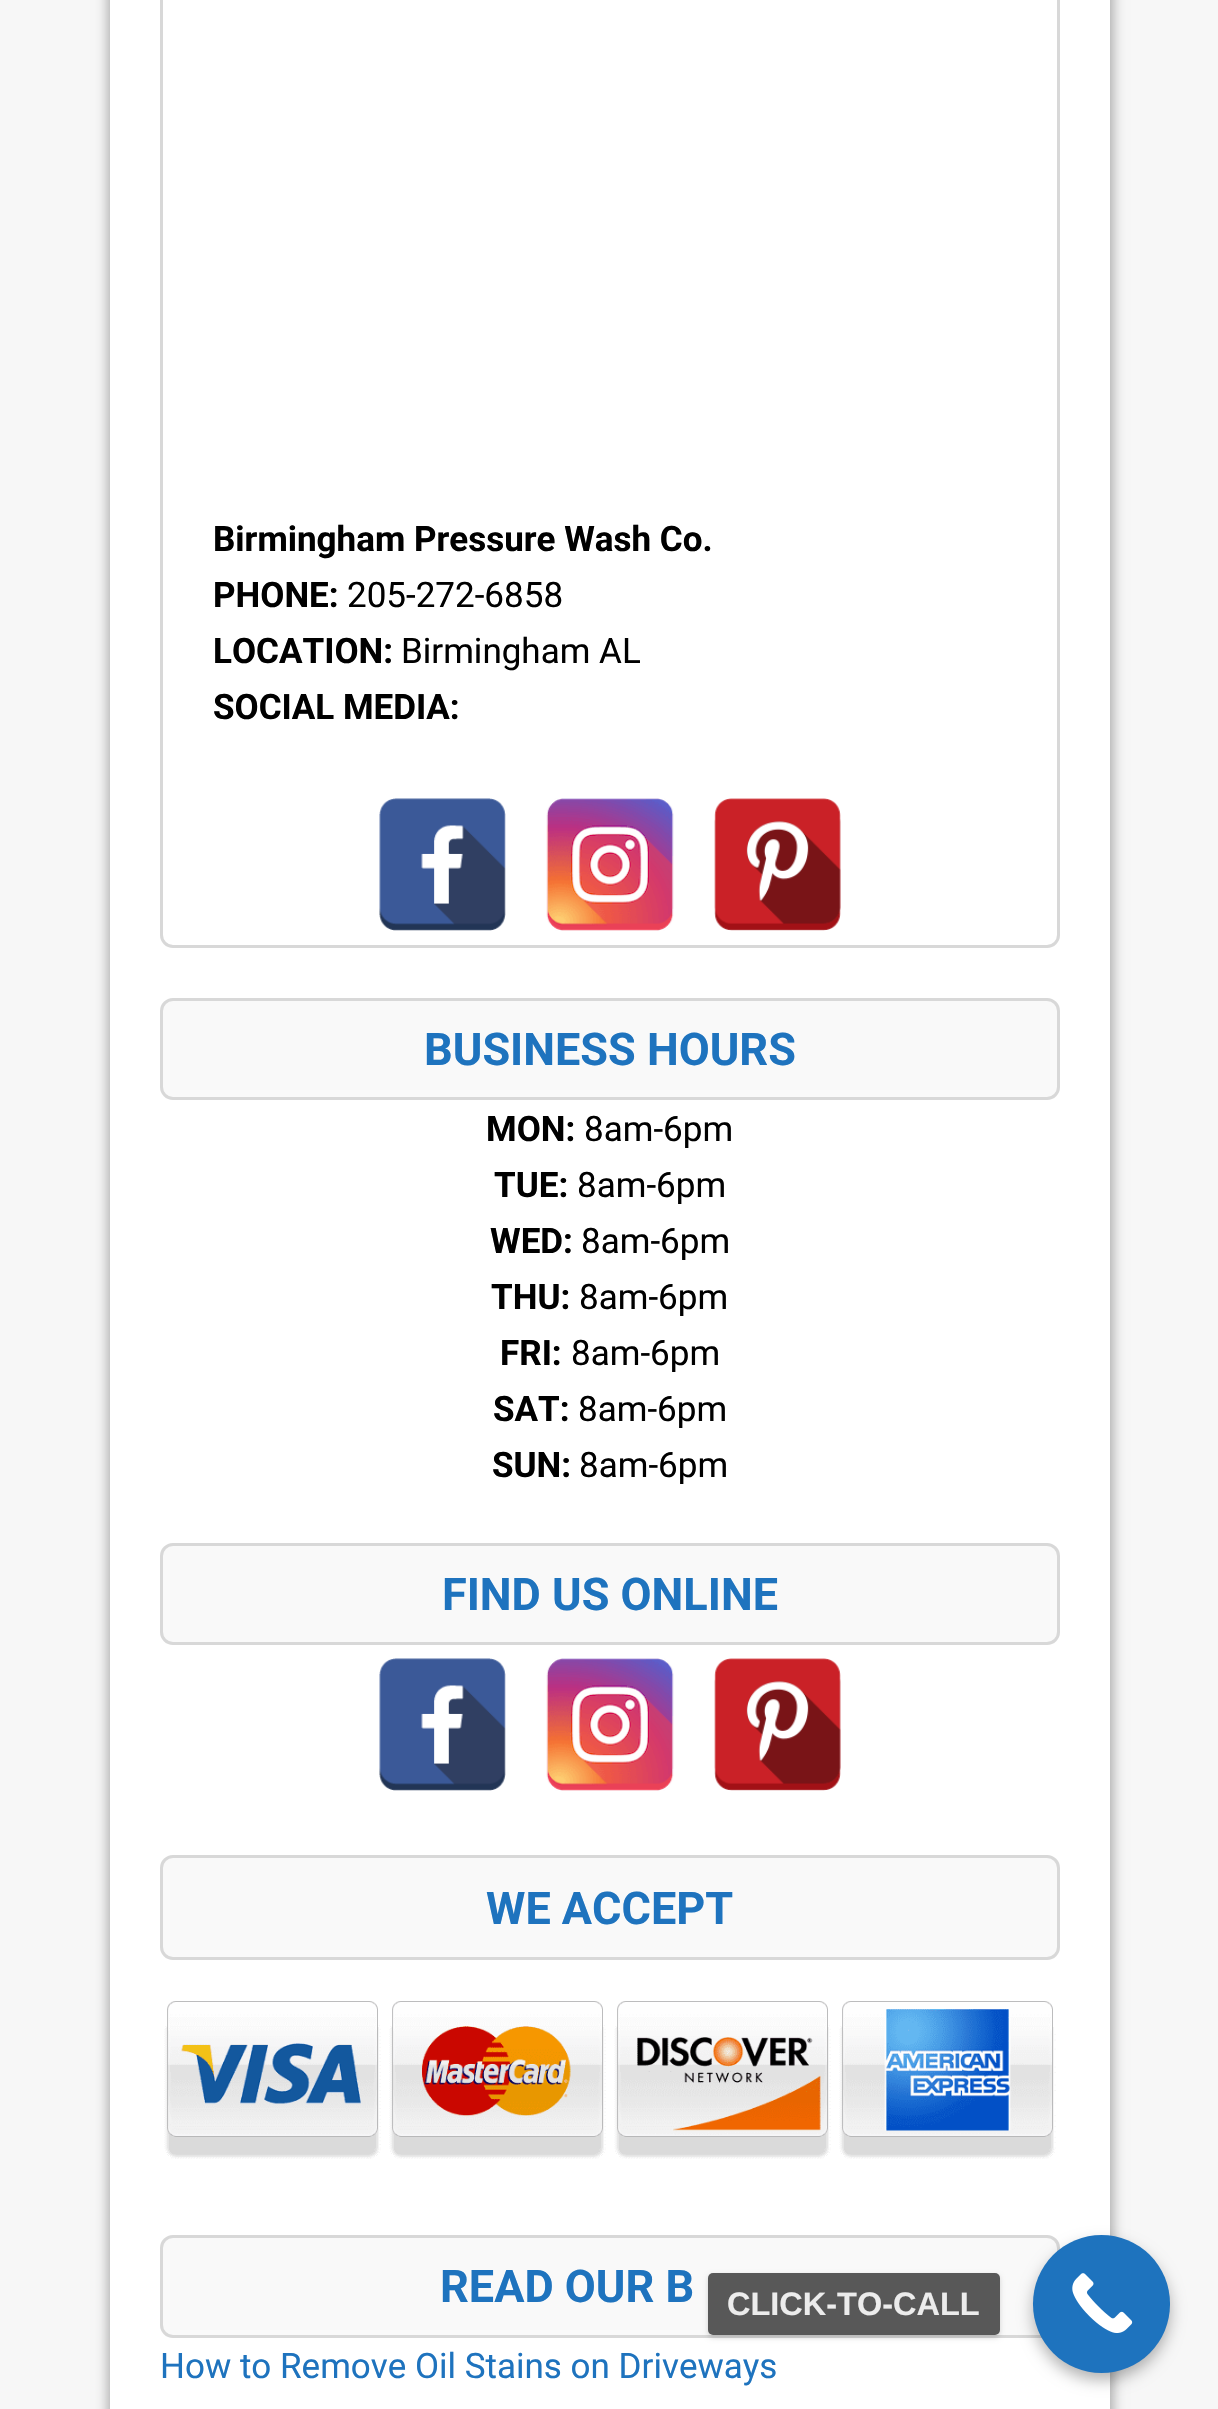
#include "include/core/SkBlurTypes.h"
#include "include/core/SkCanvas.h"
#include "include/core/SkData.h"
#include "include/core/SkFont.h"
#include "include/core/SkFontMgr.h"
#include "include/core/SkImage.h"
#include "include/core/SkMaskFilter.h"
#include "include/core/SkPaint.h"
#include "include/core/SkPathBuilder.h"
#include "include/core/SkTextBlob.h"
#include "include/effects/SkDashPathEffect.h"
#include "include/effects/SkGradientShader.h"
#include "include/utils/SkParsePath.h"

extern sk_sp<SkFontMgr> fontMgr;

void draw(SkCanvas* canvas) {
    SkPaint p;
    p.setAntiAlias(true);
    auto font = [&](const char* family, int weight, float size, bool italic = false) {
        SkFontStyle style(weight, SkFontStyle::kNormal_Width,
            italic ? SkFontStyle::kItalic_Slant : SkFontStyle::kUpright_Slant);
        SkFont result(fontMgr->matchFamilyStyle(family, style), size);
        result.setSubpixel(true);
        return result;
    };
    auto drawPhoto = [&](const char* path, float l, float t, float r, float b) {
        auto image = SkImages::DeferredFromEncodedData(SkData::MakeFromFileName(path));
        canvas->drawImageRect(image, SkRect::MakeLTRB(l, t, r, b), SkSamplingOptions());
    };
    canvas->clear(0xFFF7F7F7);
    p.setColor(0xFFA8A8A8);
    p.setMaskFilter(SkMaskFilter::MakeBlur(kNormal_SkBlurStyle, 6));
    canvas->drawRect(SkRect::MakeLTRB(108, -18, 1113, 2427), p);
    p.setMaskFilter(nullptr);
    p.setColor(0xFFFFFFFF);
    canvas->drawRect(SkRect::MakeLTRB(110, 0, 1110, 2409), p);
    p.setStyle(SkPaint::kStroke_Style);
    p.setStrokeWidth(3);
    p.setColor(0xFFD8D8D8);
    canvas->drawRoundRect(SkRect::MakeLTRB(161.5f, -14.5f, 1058.5f, 946.5f), 11.5f, 11.5f, p);
    auto font1 = font("Roboto", 700, 35);
    p.setStyle(SkPaint::kFill_Style);
    p.setColor(0xFF000000);
    canvas->drawString("Birmingham Pressure Wash Co.", 213, 551, font1, p);
    canvas->drawString("PHONE:", 213, 607, font1, p);
    auto font2 = font("Roboto", 400, 35);
    canvas->drawString("205-272-6858", 347, 607, font2, p);
    canvas->drawString("LOCATION:", 213, 663, font1, p);
    canvas->drawString("Birmingham AL", 401, 663, font2, p);
    canvas->drawString("SOCIAL MEDIA:", 213, 719, font1, p);
    drawPhoto("media/1.png", 379, 798, 506, 931);
    drawPhoto("media/2.png", 546, 798, 674, 931);
    drawPhoto("media/3.png", 714, 798, 841, 931);
    p.setColor(0xFFF9F9F9);
    canvas->drawRoundRect(SkRect::MakeLTRB(161.5f, 999.5f, 1058.5f, 1098.5f), 11.5f, 11.5f, p);
    p.setStyle(SkPaint::kStroke_Style);
    p.setColor(0xFFD8D8D8);
    canvas->drawRoundRect(SkRect::MakeLTRB(161.5f, 999.5f, 1058.5f, 1098.5f), 11.5f, 11.5f, p);
    auto font3 = font("Roboto", 700, 45);
    p.setStyle(SkPaint::kFill_Style);
    p.setColor(0xFF1E73BE);
    canvas->drawString("BUSINESS HOURS", 424, 1065, font3, p);
    p.setColor(0xFF000000);
    canvas->drawString("MON:", 486, 1141, font1, p);
    canvas->drawString("8am-6pm", 584, 1141, font2, p);
    canvas->drawString("TUE:", 494, 1197, font1, p);
    canvas->drawString("8am-6pm", 577, 1197, font2, p);
    canvas->drawString("WED:", 490, 1253, font1, p);
    canvas->drawString("8am-6pm", 581, 1253, font2, p);
    canvas->drawString("THU:", 491, 1309, font1, p);
    canvas->drawString("8am-6pm", 579, 1309, font2, p);
    canvas->drawString("FRI:", 500, 1365, font1, p);
    canvas->drawString("8am-6pm", 571, 1365, font2, p);
    canvas->drawString("SAT:", 493, 1421, font1, p);
    canvas->drawString("8am-6pm", 578, 1421, font2, p);
    canvas->drawString("SUN:", 492, 1477, font1, p);
    canvas->drawString("8am-6pm", 579, 1477, font2, p);
    p.setColor(0xFFF9F9F9);
    canvas->drawRoundRect(SkRect::MakeLTRB(161.5f, 1544.5f, 1058.5f, 1643.5f), 11.5f, 11.5f, p);
    p.setStyle(SkPaint::kStroke_Style);
    p.setColor(0xFFD8D8D8);
    canvas->drawRoundRect(SkRect::MakeLTRB(161.5f, 1544.5f, 1058.5f, 1643.5f), 11.5f, 11.5f, p);
    p.setStyle(SkPaint::kFill_Style);
    p.setColor(0xFF1E73BE);
    canvas->drawString("FIND US ONLINE", 442, 1610, font3, p);
    drawPhoto("media/4.png", 379, 1658, 506, 1791);
    drawPhoto("media/5.png", 546, 1658, 674, 1791);
    drawPhoto("media/6.png", 714, 1658, 841, 1791);
    p.setColor(0xFFF9F9F9);
    canvas->drawRoundRect(SkRect::MakeLTRB(161.5f, 1856.5f, 1058.5f, 1958.5f), 11.5f, 11.5f, p);
    p.setStyle(SkPaint::kStroke_Style);
    p.setColor(0xFFD8D8D8);
    canvas->drawRoundRect(SkRect::MakeLTRB(161.5f, 1856.5f, 1058.5f, 1958.5f), 11.5f, 11.5f, p);
    p.setStyle(SkPaint::kFill_Style);
    p.setColor(0xFF1E73BE);
    canvas->drawString("WE ACCEPT", 486, 1924, font3, p);
    drawPhoto("media/7.png", 164, 2001, 1056, 2159);
    p.setColor(0xFFF9F9F9);
    canvas->drawRoundRect(SkRect::MakeLTRB(161.5f, 2236.5f, 1058.5f, 2336.5f), 11.5f, 11.5f, p);
    p.setStyle(SkPaint::kStroke_Style);
    p.setColor(0xFFD8D8D8);
    canvas->drawRoundRect(SkRect::MakeLTRB(161.5f, 2236.5f, 1058.5f, 2336.5f), 11.5f, 11.5f, p);
    p.setStyle(SkPaint::kFill_Style);
    p.setColor(0xFF1E73BE);
    canvas->drawString("READ OUR B", 440, 2302, font3, p);
    canvas->drawString("How to Remove Oil Stains on Driveways", 160, 2378, font2, p);
    p.setColor(0x4D000000);
    p.setMaskFilter(SkMaskFilter::MakeBlur(kNormal_SkBlurStyle, 7.5f));
    canvas->drawRoundRect(SkRect::MakeLTRB(1033, 2243, 1170, 2380), 68.5f, 68.5f, p);
    p.setMaskFilter(nullptr);
    p.setColor(0xFF1E73BE);
    canvas->drawRoundRect(SkRect::MakeLTRB(1033, 2235, 1170, 2373), 68.5f, 68.5f, p);
    drawPhoto("media/8.png", 1072, 2273, 1133, 2333);
    canvas->save();
    canvas->clipPath(SkPathBuilder(SkPathFillType::kEvenOdd).moveTo(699, 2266).lineTo(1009, 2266).lineTo(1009, 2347).lineTo(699, 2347).close().moveTo(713, 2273).lineTo(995, 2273).cubicTo(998, 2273, 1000, 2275, 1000, 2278).lineTo(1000, 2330).cubicTo(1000, 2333, 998, 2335, 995, 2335).lineTo(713, 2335).cubicTo(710, 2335, 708, 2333, 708, 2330).lineTo(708, 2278).cubicTo(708, 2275, 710, 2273, 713, 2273).close().detach(), true);
    p.setColor(0x26000000);
    p.setMaskFilter(SkMaskFilter::MakeBlur(kNormal_SkBlurStyle, 2.5f));
    canvas->drawRoundRect(SkRect::MakeLTRB(708, 2275, 1000, 2338), 5, 5, p);
    p.setMaskFilter(nullptr);
    canvas->restore();
    p.setColor(0xE6464646);
    canvas->drawRoundRect(SkRect::MakeLTRB(708, 2273, 1000, 2335), 5, 5, p);
    auto font4 = font("Liberation Sans", 700, 32.5f);
    p.setColor(0xFFECECEC);
    canvas->drawString("CLICK-TO-CALL", 727, 2315, font4, p);
}
